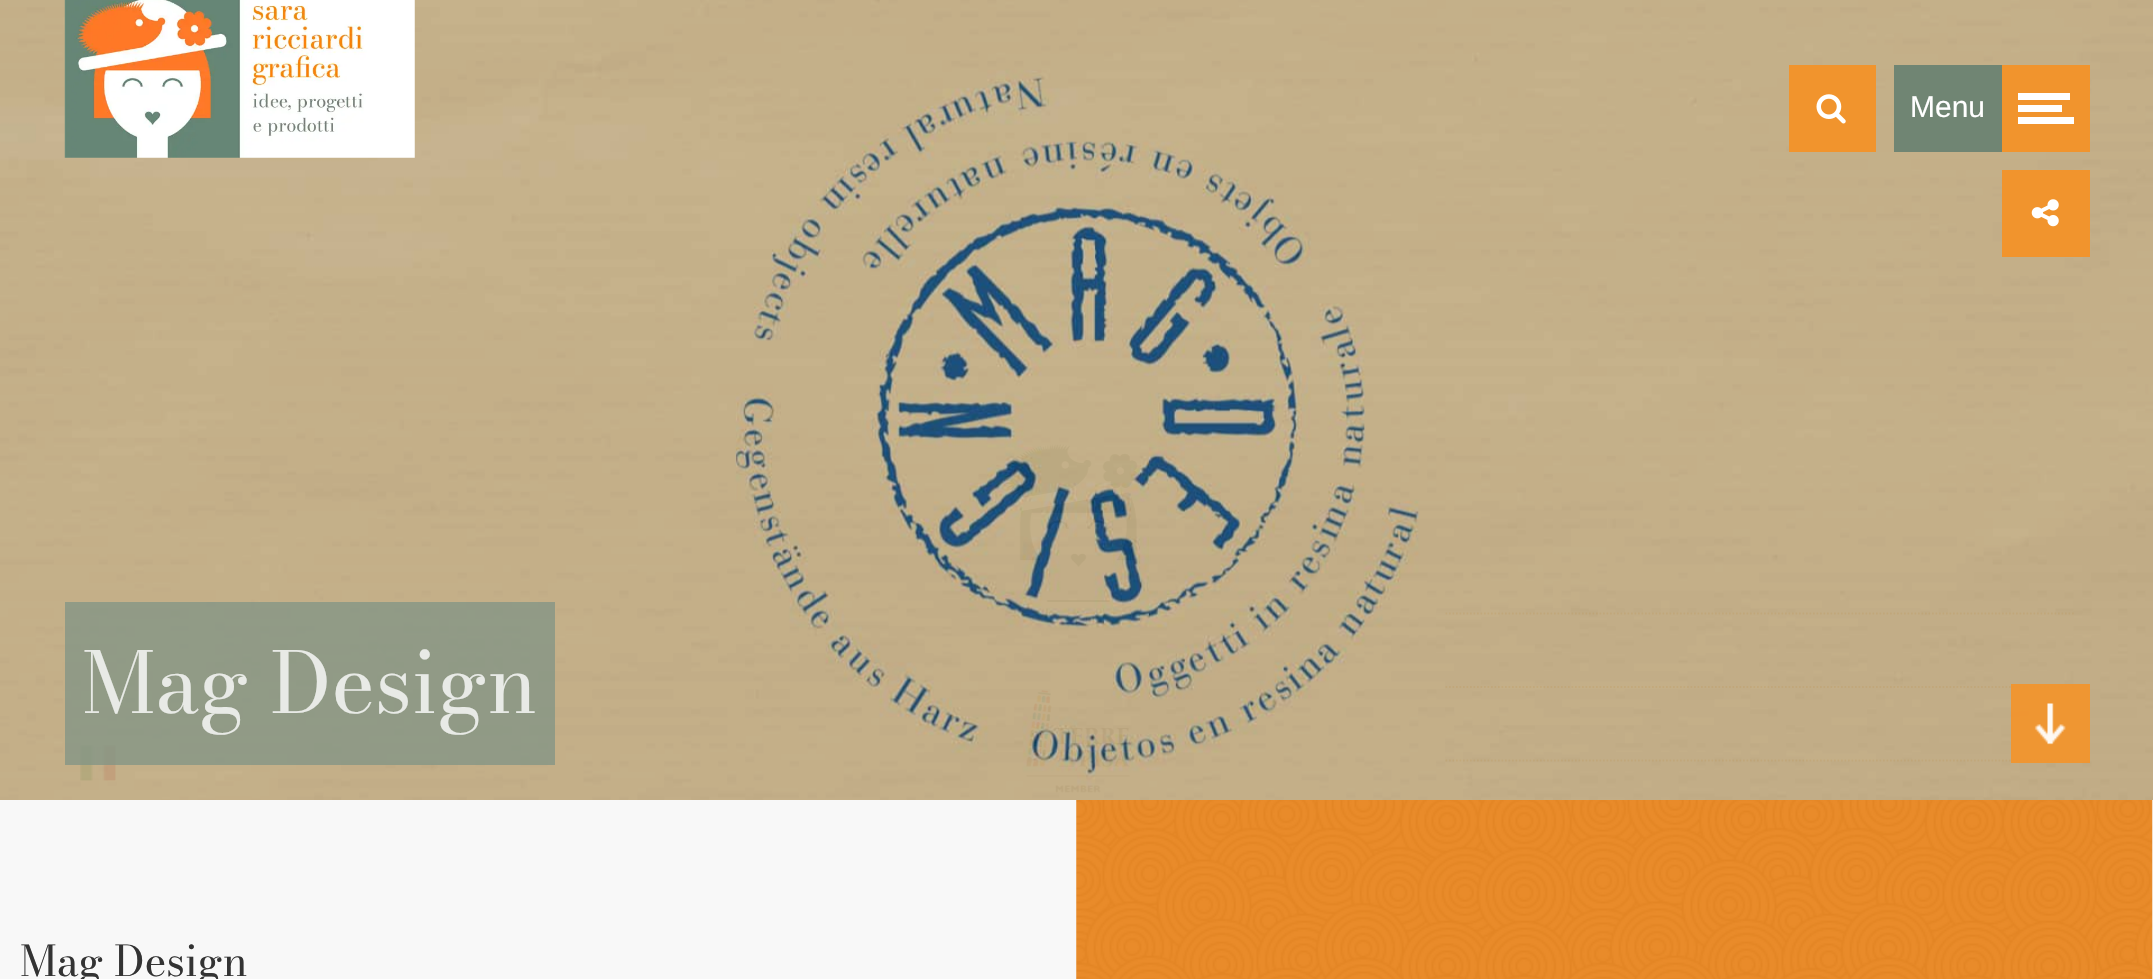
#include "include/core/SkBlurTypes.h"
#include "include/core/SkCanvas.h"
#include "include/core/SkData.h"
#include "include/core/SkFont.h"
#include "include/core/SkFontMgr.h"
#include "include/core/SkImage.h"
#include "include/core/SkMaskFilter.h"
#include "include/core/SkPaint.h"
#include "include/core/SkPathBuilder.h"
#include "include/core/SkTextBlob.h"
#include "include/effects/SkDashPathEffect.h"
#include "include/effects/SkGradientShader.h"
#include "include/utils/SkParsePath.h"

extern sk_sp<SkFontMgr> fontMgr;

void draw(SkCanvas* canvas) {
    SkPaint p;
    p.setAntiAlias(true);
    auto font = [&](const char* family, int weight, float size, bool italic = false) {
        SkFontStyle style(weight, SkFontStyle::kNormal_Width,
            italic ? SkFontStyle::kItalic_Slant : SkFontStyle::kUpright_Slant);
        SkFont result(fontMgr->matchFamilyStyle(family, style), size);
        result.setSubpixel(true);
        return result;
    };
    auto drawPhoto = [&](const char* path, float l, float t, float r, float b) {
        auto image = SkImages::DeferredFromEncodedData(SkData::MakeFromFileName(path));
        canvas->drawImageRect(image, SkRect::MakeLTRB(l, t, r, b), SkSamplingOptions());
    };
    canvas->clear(0xFFFFFFFF);
    drawPhoto("media/4.png", 80, 745, 116, 781);
    drawPhoto("media/5.png", 1002, 440, 1153, 602);
    drawPhoto("media/6.png", 1007, 672, 1149, 800);
    drawPhoto("media/7.png", 1956, 377, 1978, 416);
    drawPhoto("media/8.png", 2026, 380, 2063, 416);
    p.setStyle(SkPaint::kStroke_Style);
    p.setStrokeWidth(1.8f);
    p.setColor(0xFFE2942E);
    p.setPathEffect(SkDashPathEffect::Make({{1.75f, 1.75f}}, 0));
    canvas->drawPath(SkPathBuilder().moveTo(1445.5f, 613.5f).lineTo(2075.5f, 613.5f).detach(), p);
    p.setPathEffect(nullptr);
    p.setPathEffect(SkDashPathEffect::Make({{1.75f, 1.75f}}, 0));
    canvas->drawPath(SkPathBuilder().moveTo(1445.5f, 687).lineTo(2075.5f, 687).detach(), p);
    p.setPathEffect(nullptr);
    p.setPathEffect(SkDashPathEffect::Make({{1.75f, 1.75f}}, 0));
    canvas->drawPath(SkPathBuilder().moveTo(1445.5f, 760.5f).lineTo(2075.5f, 760.5f).detach(), p);
    p.setPathEffect(nullptr);
    drawPhoto("media/9.png", 0, 0, 2153, 800);
    drawPhoto("media/1.png", 64, 0, 415, 158);
    p.setStyle(SkPaint::kFill_Style);
    p.setColor(0xFFF1942D);
    canvas->drawRect(SkRect::MakeLTRB(1789, 65, 1876, 152), p);
    drawPhoto("media/2.png", 1816, 94, 1846, 124);
    p.setColor(0xFF708573);
    canvas->drawRect(SkRect::MakeLTRB(1894, 65, 2002, 152), p);
    auto font1 = font("Liberation Sans", 400, 30);
    p.setColor(0xFFFFFFFF);
    canvas->drawString("Menu", 1910, 117, font1, p);
    {
        const struct { float l, t, r, b; SkColor color; } items[] = {
            {2002, 65, 2090, 152, 0xFFF1942D},
            {2018, 93, 2070, 100, 0xFFFFFFFF},
            {2018, 105, 2062, 112, 0xFFFFFFFF},
            {2018, 117, 2074, 124, 0xFFFFFFFF},
            {2002, 170, 2090, 257, 0xFFF1942D},
        };
        for (auto [l, t, r, b, color] : items) {
            p.setColor(color);
            canvas->drawRect(SkRect::MakeLTRB(l, t, r, b), p);
        }
    }
    drawPhoto("media/3.png", 2031, 199, 2059, 227);
    p.setColor(0xCC839585);
    canvas->drawRect(SkRect::MakeLTRB(65, 602, 555, 765), p);
    auto font2 = font("Bodoni Moda", 400, 84);
    p.setColor(0xFFE8EAE6);
    canvas->drawString("Mag Design", 82, 713, font2, p);
    p.setColor(0xF0F1942D);
    canvas->drawRect(SkRect::MakeLTRB(2011, 684, 2090, 763), p);
    drawPhoto("media/10.png", 2034, 703, 2066, 745);
    p.setColor(0xFFF8F8F8);
    canvas->drawRect(SkRect::MakeLTRB(0, 800, 2153, 979), p);
    auto font3 = font("Bodoni Moda", 400, 42);
    p.setColor(0xFF333333);
    canvas->drawString("Mag Design", 20, 976, font3, p);
    drawPhoto("media/11.png", 1076, 800, 2153, 979);
}
